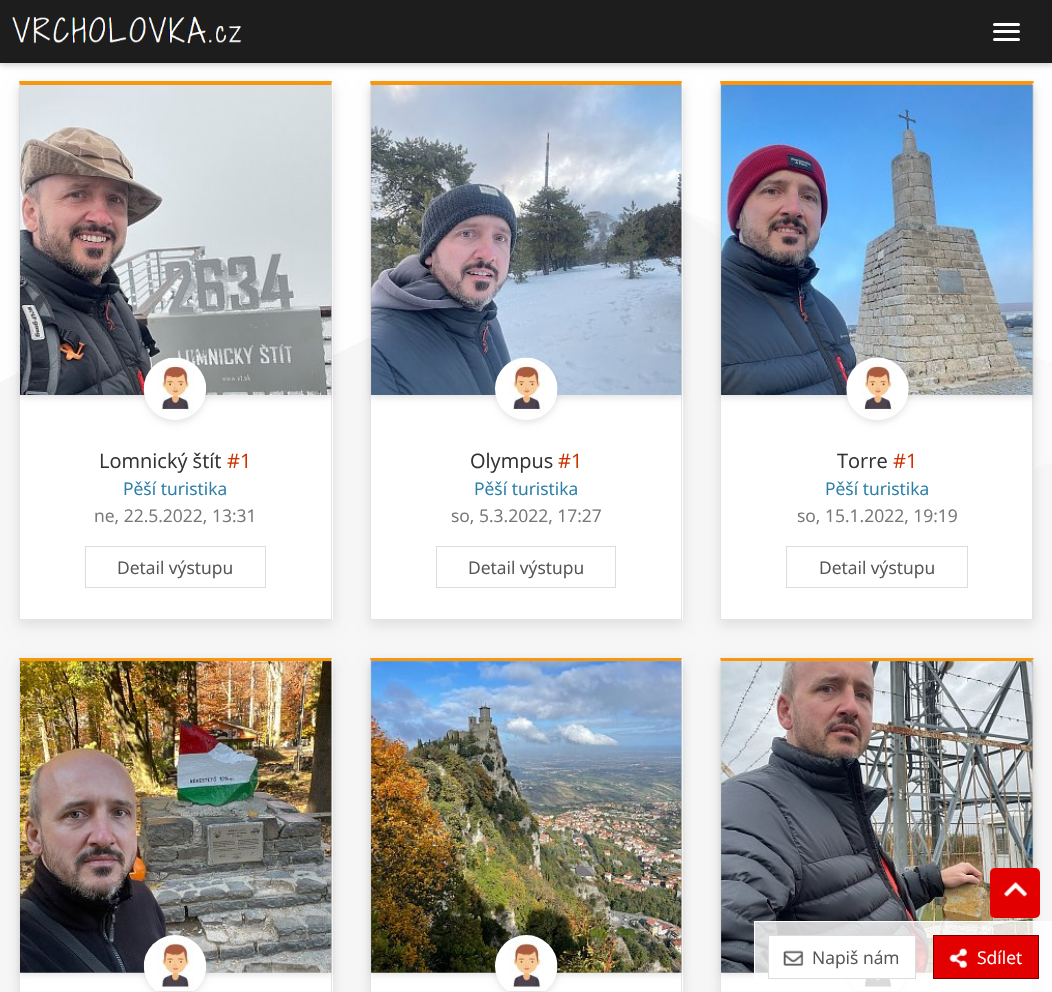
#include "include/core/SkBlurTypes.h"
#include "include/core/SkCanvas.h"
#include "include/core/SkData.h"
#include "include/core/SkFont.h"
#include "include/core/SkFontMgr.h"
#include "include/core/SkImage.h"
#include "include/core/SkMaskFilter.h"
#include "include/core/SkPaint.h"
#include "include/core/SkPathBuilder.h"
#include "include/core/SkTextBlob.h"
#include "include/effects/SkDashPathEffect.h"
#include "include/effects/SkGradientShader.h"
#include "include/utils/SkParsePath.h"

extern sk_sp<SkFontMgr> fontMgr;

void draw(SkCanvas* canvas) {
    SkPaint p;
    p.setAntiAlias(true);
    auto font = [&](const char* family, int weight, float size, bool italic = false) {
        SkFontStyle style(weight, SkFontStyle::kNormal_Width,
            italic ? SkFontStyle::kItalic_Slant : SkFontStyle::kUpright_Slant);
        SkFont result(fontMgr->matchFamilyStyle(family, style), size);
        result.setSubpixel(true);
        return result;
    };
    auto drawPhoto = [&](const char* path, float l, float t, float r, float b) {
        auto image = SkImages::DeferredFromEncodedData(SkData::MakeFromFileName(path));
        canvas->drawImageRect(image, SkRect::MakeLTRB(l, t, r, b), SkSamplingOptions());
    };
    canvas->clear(0xFFFFFFFF);
    drawPhoto("media/1.png", 0, 210, 1052, 992);
    p.setColor(0x33000000);
    p.setMaskFilter(SkMaskFilter::MakeBlur(kNormal_SkBlurStyle, 3));
    canvas->drawRect(SkRect::MakeLTRB(0, 3, 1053, 65), p);
    p.setMaskFilter(nullptr);
    p.setColor(0xFF1D1D1D);
    canvas->drawRect(SkRect::MakeLTRB(0, 0, 1052, 63), p);
    drawPhoto("media/2.png", 12, 16, 242, 44);
    p.setColor(0xFFFFFFFF);
    canvas->drawRoundRect(SkRect::MakeLTRB(993, 23, 1020, 26), 1.5f, 1.5f, p);
    canvas->drawRoundRect(SkRect::MakeLTRB(993, 30, 1020, 33), 1.5f, 1.5f, p);
    canvas->drawRoundRect(SkRect::MakeLTRB(993, 38, 1020, 41), 1.5f, 1.5f, p);
    p.setColor(0x1A000000);
    p.setMaskFilter(SkMaskFilter::MakeBlur(kNormal_SkBlurStyle, 6));
    canvas->drawRect(SkRect::MakeLTRB(19, 86, 333, 625), p);
    p.setMaskFilter(nullptr);
    p.setColor(0xFFFFFFFF);
    canvas->drawRect(SkRect::MakeLTRB(19, 81, 333, 620), p);
    p.setColor(0xFFFA980D);
    canvas->drawPath(SkPathBuilder().moveTo(19, 81).lineTo(332, 81).lineTo(331, 85).lineTo(20, 85).close().detach(), p);
    p.setColor(0x1A000000);
    canvas->drawPath(SkPathBuilder().moveTo(332, 81).lineTo(332, 620).lineTo(331, 619).lineTo(331, 85).close().detach(), p);
    canvas->drawPath(SkPathBuilder().moveTo(332, 620).lineTo(19, 620).lineTo(20, 619).lineTo(331, 619).close().detach(), p);
    canvas->drawPath(SkPathBuilder().moveTo(19, 620).lineTo(19, 81).lineTo(20, 85).lineTo(20, 619).close().detach(), p);
    p.setMaskFilter(SkMaskFilter::MakeBlur(kNormal_SkBlurStyle, 3));
    canvas->drawRect(SkRect::MakeLTRB(20, 88, 331, 398), p);
    p.setMaskFilter(nullptr);
    drawPhoto("media/3.png", 20, 85, 332, 395);
    drawPhoto("media/4.png", 20, 105, 332, 395);
    canvas->save();
    canvas->clipPath(SkPathBuilder(SkPathFillType::kEvenOdd).moveTo(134, 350).lineTo(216, 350).lineTo(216, 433).lineTo(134, 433).close().moveTo(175, 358).cubicTo(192, 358, 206, 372, 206, 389).cubicTo(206, 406, 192, 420, 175, 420).cubicTo(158, 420, 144, 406, 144, 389).cubicTo(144, 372, 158, 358, 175, 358).close().detach(), true);
    p.setMaskFilter(SkMaskFilter::MakeBlur(kNormal_SkBlurStyle, 3));
    canvas->drawRoundRect(SkRect::MakeLTRB(144, 360, 206, 423), 31, 31, p);
    p.setMaskFilter(nullptr);
    canvas->restore();
    drawPhoto("media/5.png", 143, 357, 207, 415);
    auto font1 = font("Open Sans", 400, 20);
    p.setColor(0xFF333333);
    canvas->drawString("Lomnický štít", 99, 468, font1, p);
    p.setColor(0xFFCC3300);
    canvas->drawString("#1", 227, 468, font1, p);
    auto font2 = font("Open Sans", 400, 17.5f);
    p.setColor(0xFF2A7EA7);
    canvas->drawString("Pěší turistika", 123, 495, font2, p);
    p.setColor(0xFF777777);
    canvas->drawString("ne, 22.5.2022, 13:31", 94, 522, font2, p);
    p.setStyle(SkPaint::kStroke_Style);
    p.setStrokeWidth(1);
    p.setColor(0xFFDDDDDD);
    canvas->drawRect(SkRect::MakeLTRB(85.5f, 546.5f, 265.5f, 587.5f), p);
    p.setStyle(SkPaint::kFill_Style);
    p.setColor(0xFF555555);
    canvas->drawString("Detail výstupu", 117, 574, font2, p);
    p.setColor(0x1A000000);
    p.setMaskFilter(SkMaskFilter::MakeBlur(kNormal_SkBlurStyle, 6));
    canvas->drawRect(SkRect::MakeLTRB(370, 86, 683, 625), p);
    p.setMaskFilter(nullptr);
    p.setColor(0xFFFFFFFF);
    canvas->drawRect(SkRect::MakeLTRB(370, 81, 683, 620), p);
    p.setColor(0xFFFA980D);
    canvas->drawPath(SkPathBuilder().moveTo(370, 81).lineTo(682, 81).lineTo(681, 85).lineTo(371, 85).close().detach(), p);
    p.setColor(0x1A000000);
    canvas->drawPath(SkPathBuilder().moveTo(682, 81).lineTo(682, 620).lineTo(681, 619).lineTo(681, 85).close().detach(), p);
    canvas->drawPath(SkPathBuilder().moveTo(682, 620).lineTo(370, 620).lineTo(371, 619).lineTo(681, 619).close().detach(), p);
    canvas->drawPath(SkPathBuilder().moveTo(370, 620).lineTo(370, 81).lineTo(371, 85).lineTo(371, 619).close().detach(), p);
    p.setMaskFilter(SkMaskFilter::MakeBlur(kNormal_SkBlurStyle, 3));
    canvas->drawRect(SkRect::MakeLTRB(371, 88, 681, 398), p);
    p.setMaskFilter(nullptr);
    drawPhoto("media/6.png", 371, 85, 682, 395);
    drawPhoto("media/7.png", 371, 85, 682, 395);
    canvas->save();
    canvas->clipPath(SkPathBuilder(SkPathFillType::kEvenOdd).moveTo(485, 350).lineTo(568, 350).lineTo(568, 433).lineTo(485, 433).close().moveTo(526, 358).lineTo(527, 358).cubicTo(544, 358, 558, 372, 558, 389).cubicTo(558, 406, 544, 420, 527, 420).lineTo(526, 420).cubicTo(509, 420, 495, 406, 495, 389).cubicTo(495, 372, 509, 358, 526, 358).close().detach(), true);
    p.setMaskFilter(SkMaskFilter::MakeBlur(kNormal_SkBlurStyle, 3));
    canvas->drawRoundRect(SkRect::MakeLTRB(495, 360, 558, 423), 31.5f, 31.5f, p);
    p.setMaskFilter(nullptr);
    canvas->restore();
    drawPhoto("media/8.png", 495, 357, 558, 415);
    p.setColor(0xFF333333);
    canvas->drawString("Olympus", 470, 468, font1, p);
    p.setColor(0xFFCC3300);
    canvas->drawString("#1", 558, 468, font1, p);
    p.setColor(0xFF2A7EA7);
    canvas->drawString("Pěší turistika", 474, 495, font2, p);
    p.setColor(0xFF777777);
    canvas->drawString("so, 5.3.2022, 17:27", 451, 522, font2, p);
    p.setStyle(SkPaint::kStroke_Style);
    p.setColor(0xFFDDDDDD);
    canvas->drawRect(SkRect::MakeLTRB(436.5f, 546.5f, 615.5f, 587.5f), p);
    p.setStyle(SkPaint::kFill_Style);
    p.setColor(0xFF555555);
    canvas->drawString("Detail výstupu", 468, 574, font2, p);
    p.setColor(0x1A000000);
    p.setMaskFilter(SkMaskFilter::MakeBlur(kNormal_SkBlurStyle, 6));
    canvas->drawRect(SkRect::MakeLTRB(720, 86, 1034, 625), p);
    p.setMaskFilter(nullptr);
    p.setColor(0xFFFFFFFF);
    canvas->drawRect(SkRect::MakeLTRB(720, 81, 1034, 620), p);
    p.setColor(0xFFFA980D);
    canvas->drawPath(SkPathBuilder().moveTo(720, 81).lineTo(1034, 81).lineTo(1032, 85).lineTo(721, 85).close().detach(), p);
    p.setColor(0x1A000000);
    canvas->drawPath(SkPathBuilder().moveTo(1034, 81).lineTo(1034, 620).lineTo(1032, 619).lineTo(1032, 85).close().detach(), p);
    canvas->drawPath(SkPathBuilder().moveTo(1034, 620).lineTo(720, 620).lineTo(721, 619).lineTo(1032, 619).close().detach(), p);
    canvas->drawPath(SkPathBuilder().moveTo(720, 620).lineTo(720, 81).lineTo(721, 85).lineTo(721, 619).close().detach(), p);
    p.setMaskFilter(SkMaskFilter::MakeBlur(kNormal_SkBlurStyle, 3));
    canvas->drawRect(SkRect::MakeLTRB(721, 88, 1033, 398), p);
    p.setMaskFilter(nullptr);
    drawPhoto("media/9.png", 721, 85, 1033, 395);
    drawPhoto("media/10.png", 721, 85, 1033, 395);
    canvas->save();
    canvas->clipPath(SkPathBuilder(SkPathFillType::kEvenOdd).moveTo(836, 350).lineTo(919, 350).lineTo(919, 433).lineTo(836, 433).close().moveTo(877, 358).lineTo(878, 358).cubicTo(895, 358, 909, 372, 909, 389).cubicTo(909, 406, 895, 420, 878, 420).lineTo(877, 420).cubicTo(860, 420, 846, 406, 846, 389).cubicTo(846, 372, 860, 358, 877, 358).close().detach(), true);
    p.setMaskFilter(SkMaskFilter::MakeBlur(kNormal_SkBlurStyle, 3));
    canvas->drawRoundRect(SkRect::MakeLTRB(846, 360, 909, 423), 31.5f, 31.5f, p);
    p.setMaskFilter(nullptr);
    canvas->restore();
    drawPhoto("media/11.png", 846, 357, 909, 416);
    p.setColor(0xFF333333);
    canvas->drawString("Torre", 837, 468, font1, p);
    p.setColor(0xFFCC3300);
    canvas->drawString("#1", 893, 468, font1, p);
    p.setColor(0xFF2A7EA7);
    canvas->drawString("Pěší turistika", 825, 495, font2, p);
    p.setColor(0xFF777777);
    canvas->drawString("so, 15.1.2022, 19:19", 797, 522, font2, p);
    p.setStyle(SkPaint::kStroke_Style);
    p.setColor(0xFFDDDDDD);
    canvas->drawRect(SkRect::MakeLTRB(786.5f, 546.5f, 967.5f, 587.5f), p);
    p.setStyle(SkPaint::kFill_Style);
    p.setColor(0xFF555555);
    canvas->drawString("Detail výstupu", 819, 574, font2, p);
    p.setColor(0x1A000000);
    p.setMaskFilter(SkMaskFilter::MakeBlur(kNormal_SkBlurStyle, 6));
    canvas->drawRect(SkRect::MakeLTRB(19, 663, 333, 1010), p);
    p.setMaskFilter(nullptr);
    p.setColor(0xFFFFFFFF);
    canvas->drawRect(SkRect::MakeLTRB(19, 658, 333, 992), p);
    p.setColor(0xFFFA980D);
    canvas->drawPath(SkPathBuilder().moveTo(19, 658).lineTo(332, 658).lineTo(331, 661).lineTo(20, 661).close().detach(), p);
    p.setColor(0x1A000000);
    canvas->drawPath(SkPathBuilder().moveTo(332, 658).lineTo(332, 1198).lineTo(331, 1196).lineTo(331, 661).close().detach(), p);
    canvas->drawPath(SkPathBuilder().moveTo(19, 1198).lineTo(19, 658).lineTo(20, 661).lineTo(20, 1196).close().detach(), p);
    p.setMaskFilter(SkMaskFilter::MakeBlur(kNormal_SkBlurStyle, 3));
    canvas->drawRect(SkRect::MakeLTRB(20, 664, 331, 975), p);
    p.setMaskFilter(nullptr);
    drawPhoto("media/12.png", 20, 661, 332, 973);
    drawPhoto("media/13.png", 20, 661, 332, 973);
    p.setMaskFilter(SkMaskFilter::MakeBlur(kNormal_SkBlurStyle, 3));
    canvas->drawRoundRect(SkRect::MakeLTRB(144, 938, 206, 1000), 31, 31, p);
    p.setMaskFilter(nullptr);
    drawPhoto("media/14.png", 143, 935, 207, 991);
    p.setMaskFilter(SkMaskFilter::MakeBlur(kNormal_SkBlurStyle, 6));
    canvas->drawRect(SkRect::MakeLTRB(370, 663, 683, 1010), p);
    p.setMaskFilter(nullptr);
    p.setColor(0xFFFFFFFF);
    canvas->drawRect(SkRect::MakeLTRB(370, 658, 683, 992), p);
    p.setColor(0xFFFA980D);
    canvas->drawPath(SkPathBuilder().moveTo(370, 658).lineTo(682, 658).lineTo(681, 661).lineTo(371, 661).close().detach(), p);
    p.setColor(0x1A000000);
    canvas->drawPath(SkPathBuilder().moveTo(682, 658).lineTo(682, 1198).lineTo(681, 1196).lineTo(681, 661).close().detach(), p);
    canvas->drawPath(SkPathBuilder().moveTo(370, 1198).lineTo(370, 658).lineTo(371, 661).lineTo(371, 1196).close().detach(), p);
    p.setMaskFilter(SkMaskFilter::MakeBlur(kNormal_SkBlurStyle, 3));
    canvas->drawRect(SkRect::MakeLTRB(371, 664, 681, 975), p);
    p.setMaskFilter(nullptr);
    drawPhoto("media/15.png", 371, 661, 682, 973);
    drawPhoto("media/16.png", 371, 661, 682, 973);
    p.setMaskFilter(SkMaskFilter::MakeBlur(kNormal_SkBlurStyle, 3));
    canvas->drawRoundRect(SkRect::MakeLTRB(495, 938, 558, 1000), 31, 31, p);
    p.setMaskFilter(nullptr);
    drawPhoto("media/17.png", 495, 935, 558, 991);
    p.setMaskFilter(SkMaskFilter::MakeBlur(kNormal_SkBlurStyle, 6));
    canvas->drawRect(SkRect::MakeLTRB(720, 663, 1034, 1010), p);
    p.setMaskFilter(nullptr);
    p.setColor(0xFFFFFFFF);
    canvas->drawRect(SkRect::MakeLTRB(720, 658, 1034, 992), p);
    p.setColor(0xFFFA980D);
    canvas->drawPath(SkPathBuilder().moveTo(720, 658).lineTo(1034, 658).lineTo(1032, 661).lineTo(721, 661).close().detach(), p);
    p.setColor(0x1A000000);
    canvas->drawPath(SkPathBuilder().moveTo(1034, 658).lineTo(1034, 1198).lineTo(1032, 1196).lineTo(1032, 661).close().detach(), p);
    canvas->drawPath(SkPathBuilder().moveTo(720, 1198).lineTo(720, 658).lineTo(721, 661).lineTo(721, 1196).close().detach(), p);
    p.setMaskFilter(SkMaskFilter::MakeBlur(kNormal_SkBlurStyle, 3));
    canvas->drawRect(SkRect::MakeLTRB(721, 664, 1033, 975), p);
    p.setMaskFilter(nullptr);
    drawPhoto("media/18.png", 721, 661, 1033, 973);
    drawPhoto("media/19.png", 721, 661, 1033, 973);
    p.setMaskFilter(SkMaskFilter::MakeBlur(kNormal_SkBlurStyle, 3));
    canvas->drawRoundRect(SkRect::MakeLTRB(846, 938, 909, 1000), 31, 31, p);
    p.setMaskFilter(nullptr);
    drawPhoto("media/20.png", 849, 979, 906, 991);
    p.setColor(0xFFE20000);
    canvas->drawRoundRect(SkRect::MakeLTRB(990, 868, 1040, 918), 5, 5, p);
    drawPhoto("media/21.png", 1004, 882, 1028, 897);
    p.setColor(0xCCFFFFFF);
    canvas->drawRect(SkRect::MakeLTRB(754.5f, 921.5f, 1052.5f, 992.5f), p);
    p.setStyle(SkPaint::kStroke_Style);
    p.setColor(0xFFFFFFFF);
    canvas->drawRect(SkRect::MakeLTRB(754.5f, 921.5f, 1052.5f, 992.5f), p);
    p.setStyle(SkPaint::kFill_Style);
    canvas->drawRect(SkRect::MakeLTRB(768.5f, 935.5f, 915.5f, 978.5f), p);
    p.setStyle(SkPaint::kStroke_Style);
    p.setColor(0xFFDDDDDD);
    canvas->drawRect(SkRect::MakeLTRB(768.5f, 935.5f, 915.5f, 978.5f), p);
    drawPhoto("media/22.png", 783, 950, 804, 966);
    p.setStyle(SkPaint::kFill_Style);
    p.setColor(0xFF555555);
    canvas->drawString("Napiš nám", 812, 964, font2, p);
    p.setColor(0xFFE20000);
    canvas->drawRect(SkRect::MakeLTRB(933.5f, 935.5f, 1038.5f, 978.5f), p);
    p.setStyle(SkPaint::kStroke_Style);
    p.setColor(0xFF790000);
    canvas->drawRect(SkRect::MakeLTRB(933.5f, 935.5f, 1038.5f, 978.5f), p);
    drawPhoto("media/23.png", 949, 948, 967, 968);
    p.setStyle(SkPaint::kFill_Style);
    p.setColor(0xFFFFFFFF);
    canvas->drawString("Sdílet", 977, 964, font2, p);
}
